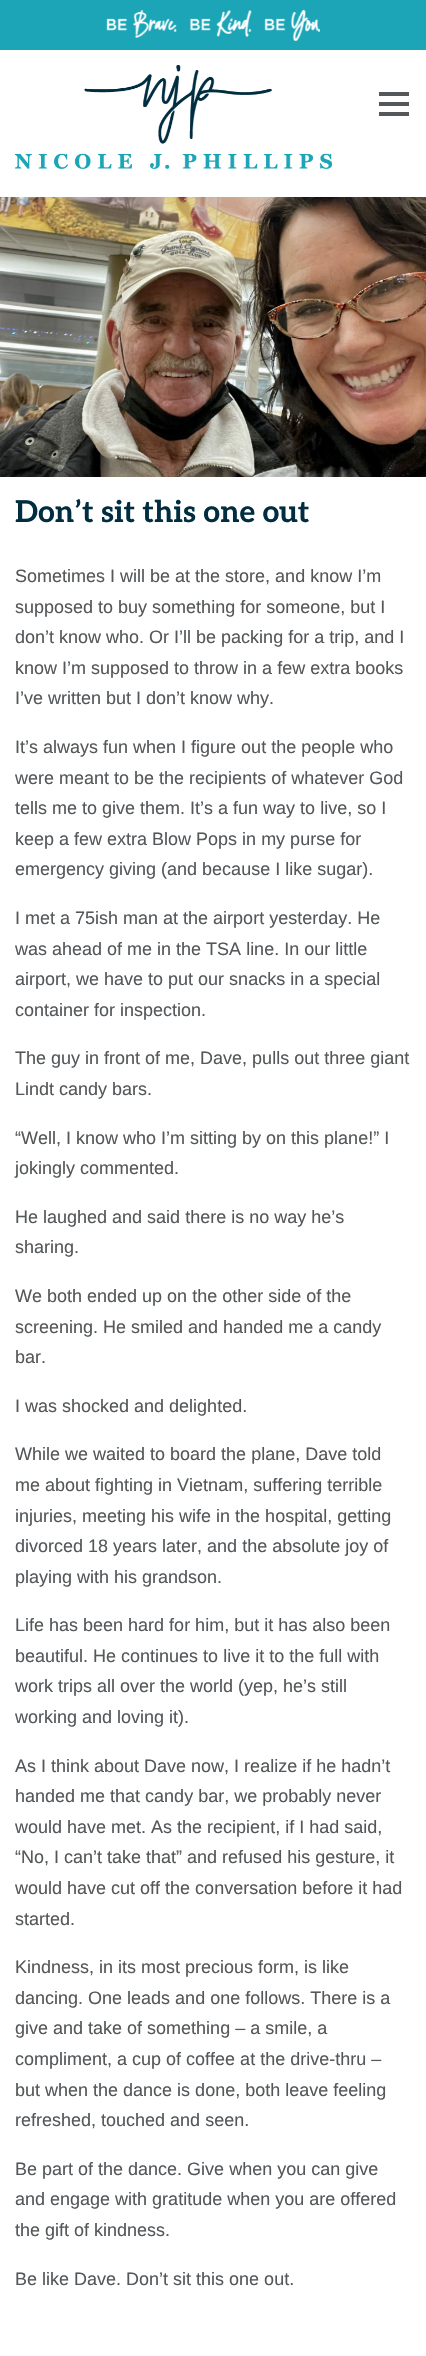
#include "include/core/SkBlurTypes.h"
#include "include/core/SkCanvas.h"
#include "include/core/SkData.h"
#include "include/core/SkFont.h"
#include "include/core/SkFontMgr.h"
#include "include/core/SkImage.h"
#include "include/core/SkMaskFilter.h"
#include "include/core/SkPaint.h"
#include "include/core/SkPathBuilder.h"
#include "include/core/SkTextBlob.h"
#include "include/effects/SkDashPathEffect.h"
#include "include/effects/SkGradientShader.h"
#include "include/utils/SkParsePath.h"

extern sk_sp<SkFontMgr> fontMgr;

void draw(SkCanvas* canvas) {
    SkPaint p;
    p.setAntiAlias(true);
    auto font = [&](const char* family, int weight, float size, bool italic = false) {
        SkFontStyle style(weight, SkFontStyle::kNormal_Width,
            italic ? SkFontStyle::kItalic_Slant : SkFontStyle::kUpright_Slant);
        SkFont result(fontMgr->matchFamilyStyle(family, style), size);
        result.setSubpixel(true);
        return result;
    };
    auto drawPhoto = [&](const char* path, float l, float t, float r, float b) {
        auto image = SkImages::DeferredFromEncodedData(SkData::MakeFromFileName(path));
        canvas->drawImageRect(image, SkRect::MakeLTRB(l, t, r, b), SkSamplingOptions());
    };
    canvas->clear(0xFFFFFFFF);
    p.setColor(0xFF1BA5B7);
    canvas->drawRect(SkRect::MakeLTRB(0, 0, 426, 50), p);
    drawPhoto("media/1.png", 106, 10, 320, 41);
    drawPhoto("media/2.png", 15, 65, 332, 169);
    {
        const struct { float l, t, r, b; SkColor color; } items[] = {
            {379, 92, 409, 96, 0xFF55585A},
            {379, 102, 409, 106, 0xFF55585A},
            {379, 112, 409, 116, 0xFF55585A},
        };
        for (auto [l, t, r, b, color] : items) {
            p.setColor(color);
            canvas->drawRect(SkRect::MakeLTRB(l, t, r, b), p);
        }
    }
    drawPhoto("media/3.png", 0, 197, 426, 477);
    auto font1 = font("Aleo", 700, 30);
    p.setColor(0xFF002D40);
    canvas->drawString("Don’t sit this one out", 15, 522, font1, p);
    auto font2 = font("Arimo", 400, 18);
    p.setColor(0xFF55585A);
    {
        const struct { const char* s; float x, y; } items[] = {
            {"Sometimes I will be at the store, and know I’m", 15, 582},
            {"supposed to buy something for someone, but I", 15, 613},
            {"don’t know who. Or I’ll be packing for a trip, and I", 15, 643},
            {"know I’m supposed to throw in a few extra books", 15, 674},
            {"I’ve written but I don’t know why.", 15, 704},
            {"It’s always fun when I figure out the people who", 15, 753},
            {"were meant to be the recipients of whatever God", 15, 784},
            {"tells me to give them. It’s a fun way to live, so I", 15, 814},
            {"keep a few extra Blow Pops in my purse for", 15, 845},
            {"emergency giving (and because I like sugar).", 15, 875},
            {"I met a 75ish man at the airport yesterday. He", 15, 924},
            {"was ahead of me in the TSA line. In our little", 15, 955},
            {"airport, we have to put our snacks in a special", 15, 985},
            {"container for inspection.", 15, 1016},
            {"The guy in front of me, Dave, pulls out three giant", 15, 1064},
            {"Lindt candy bars.", 15, 1095},
            {"“Well, I know who I’m sitting by on this plane!” I", 15, 1144},
            {"jokingly commented.", 15, 1174},
            {"He laughed and said there is no way he’s", 15, 1223},
            {"sharing.", 15, 1253},
            {"We both ended up on the other side of the", 15, 1302},
            {"screening. He smiled and handed me a candy", 15, 1333},
            {"bar.", 15, 1363},
            {"I was shocked and delighted.", 15, 1412},
            {"While we waited to board the plane, Dave told", 15, 1460},
            {"me about fighting in Vietnam, suffering terrible", 15, 1491},
            {"injuries, meeting his wife in the hospital, getting", 15, 1522},
            {"divorced 18 years later, and the absolute joy of", 15, 1552},
            {"playing with his grandson.", 15, 1583},
            {"Life has been hard for him, but it has also been", 15, 1631},
            {"beautiful. He continues to live it to the full with", 15, 1662},
            {"work trips all over the world (yep, he’s still", 15, 1692},
            {"working and loving it).", 15, 1723},
            {"As I think about Dave now, I realize if he hadn’t", 15, 1772},
            {"handed me that candy bar, we probably never", 15, 1802},
            {"would have met. As the recipient, if I had said,", 15, 1833},
            {"“No, I can’t take that” and refused his gesture, it", 15, 1863},
            {"would have cut off the conversation before it had", 15, 1894},
            {"started.", 15, 1925},
            {"Kindness, in its most precious form, is like", 15, 1973},
            {"dancing. One leads and one follows. There is a", 15, 2004},
            {"give and take of something – a smile, a", 15, 2034},
            {"compliment, a cup of coffee at the drive-thru –", 15, 2065},
            {"but when the dance is done, both leave feeling", 15, 2096},
            {"refreshed, touched and seen.", 15, 2126},
            {"Be part of the dance. Give when you can give", 15, 2175},
            {"and engage with gratitude when you are offered", 15, 2205},
            {"the gift of kindness.", 15, 2236},
            {"Be like Dave. Don’t sit this one out.", 15, 2285},
        };
        for (auto [s, x, y] : items) {
            canvas->drawString(s, x, y, font2, p);
        }
    }
}
